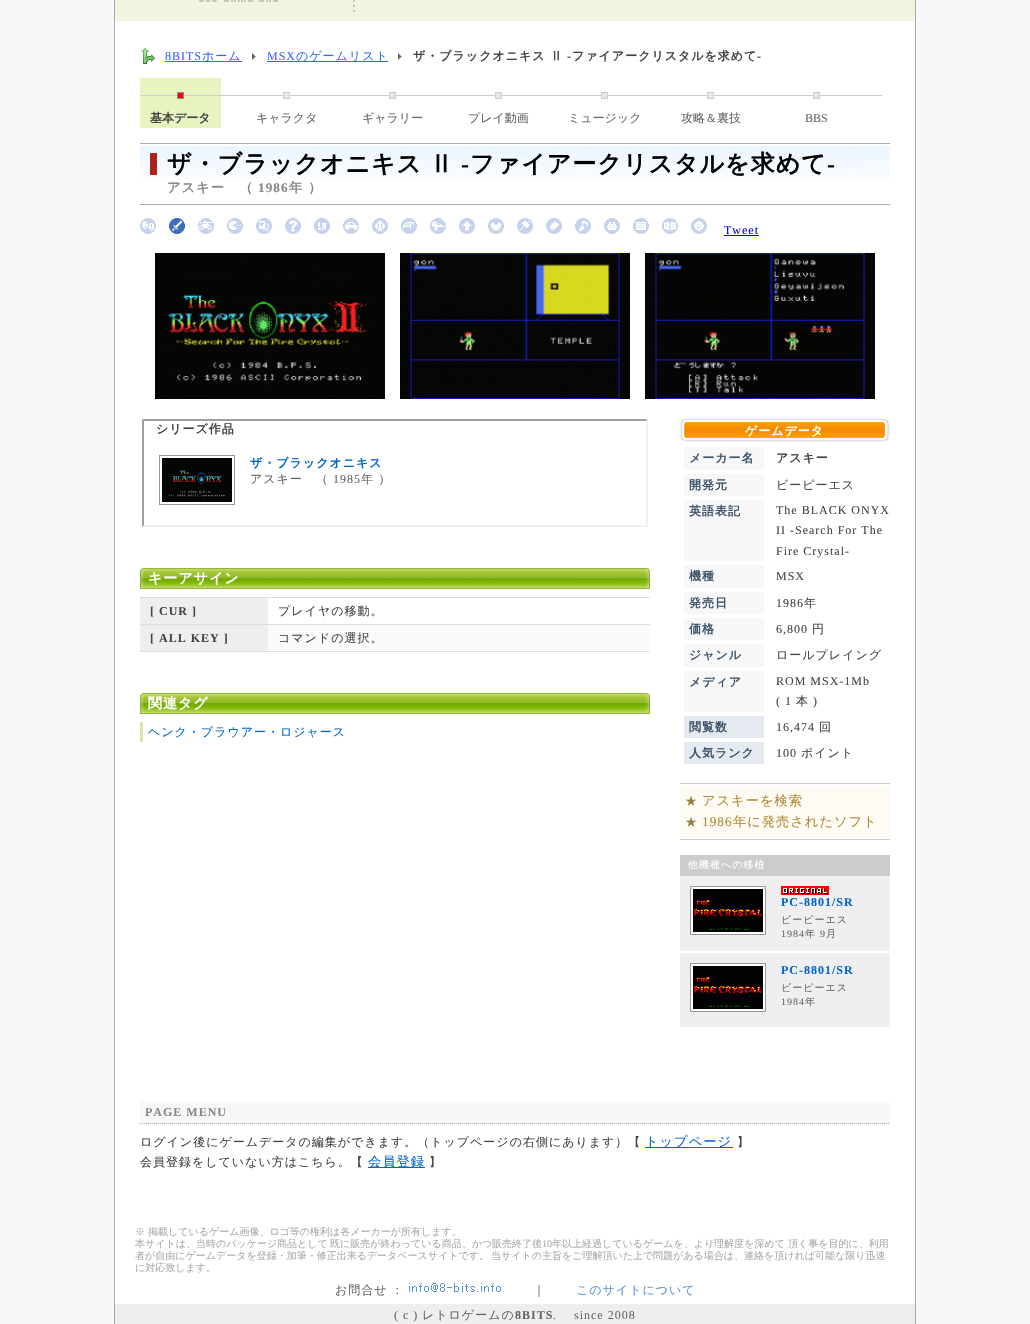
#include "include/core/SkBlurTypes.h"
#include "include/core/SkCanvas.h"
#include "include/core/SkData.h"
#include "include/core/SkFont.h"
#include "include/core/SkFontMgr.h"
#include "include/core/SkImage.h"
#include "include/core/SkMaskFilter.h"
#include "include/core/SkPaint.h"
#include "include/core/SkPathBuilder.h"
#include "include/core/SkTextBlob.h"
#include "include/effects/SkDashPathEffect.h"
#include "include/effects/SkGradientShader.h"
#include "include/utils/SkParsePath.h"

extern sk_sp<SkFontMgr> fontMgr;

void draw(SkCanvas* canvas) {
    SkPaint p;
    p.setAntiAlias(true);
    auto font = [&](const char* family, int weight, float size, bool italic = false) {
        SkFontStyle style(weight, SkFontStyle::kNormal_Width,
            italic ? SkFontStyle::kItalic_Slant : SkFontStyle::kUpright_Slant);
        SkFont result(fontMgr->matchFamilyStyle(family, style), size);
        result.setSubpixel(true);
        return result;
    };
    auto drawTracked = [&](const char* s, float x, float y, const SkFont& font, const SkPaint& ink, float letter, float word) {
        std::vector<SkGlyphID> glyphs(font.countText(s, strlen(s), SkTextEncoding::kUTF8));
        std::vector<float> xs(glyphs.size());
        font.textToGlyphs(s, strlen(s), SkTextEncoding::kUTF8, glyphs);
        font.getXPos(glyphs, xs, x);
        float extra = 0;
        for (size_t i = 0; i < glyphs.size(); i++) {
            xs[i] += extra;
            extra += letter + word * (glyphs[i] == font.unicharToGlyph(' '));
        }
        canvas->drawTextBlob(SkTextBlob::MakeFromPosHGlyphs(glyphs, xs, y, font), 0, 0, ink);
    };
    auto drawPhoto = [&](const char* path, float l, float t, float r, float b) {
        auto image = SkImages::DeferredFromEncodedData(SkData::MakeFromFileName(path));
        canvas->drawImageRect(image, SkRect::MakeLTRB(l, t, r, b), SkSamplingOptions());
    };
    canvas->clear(0xFFF8F8F8);
    {
        const struct { float l, t, r, b; SkColor color; } items[] = {
            {115, 21, 915, 1304, 0xFFFFFFFF},
            {915, 0, 916, 1324, 0xFFAAAAAA},
            {114, 0, 115, 1324, 0xFFAAAAAA},
            {115, 0, 915, 21, 0xFFF3F3E1},
        };
        for (auto [l, t, r, b, color] : items) {
            p.setColor(color);
            canvas->drawRect(SkRect::MakeLTRB(l, t, r, b), p);
        }
    }
    drawPhoto("media/1.png", 199, 0, 355, 12);
    drawPhoto("media/2.png", 141, 48, 155, 64);
    auto font1 = font("Liberation Serif", 400, 12);
    p.setColor(0xFF3366FF);
    drawTracked("8BITS", 165, 60, font1, p, 1, 0);
    canvas->drawRect(SkRect::MakeLTRB(165, 61, 242, 62), p);
    auto font2 = font("WenQuanYi Zen Hei", 500, 12);
    drawTracked("ホーム", 202, 60, font2, p, 1, 0);
    drawPhoto("media/3.png", 252, 53, 256, 60);
    drawTracked("MSX", 267, 60, font1, p, 1, 0);
    canvas->drawRect(SkRect::MakeLTRB(267, 61, 388, 62), p);
    drawTracked("のゲームリスト", 296, 60, font2, p, 1, 0);
    drawPhoto("media/3.png", 398, 53, 402, 60);
    auto font3 = font("WenQuanYi Zen Hei", 700, 12);
    p.setColor(0xFF444444);
    drawTracked("ザ・ブラックオニキス Ⅱ", 413, 60, font3, p, 1, 0);
    auto font4 = font("Liberation Serif", 700, 12);
    drawTracked("-", 567, 60, font4, p, 1, 0);
    drawTracked("ファイアークリスタルを求めて", 572, 60, font3, p, 1, 0);
    drawTracked("-", 757, 60, font4, p, 1, 0);
    {
        const struct { float l, t, r, b; SkColor color; } items[] = {
            {221, 95, 246, 96, 0xFFCDCDCD},
            {327, 95, 352, 96, 0xFFCDCDCD},
            {433, 95, 458, 96, 0xFFCDCDCD},
            {539, 95, 564, 96, 0xFFCDCDCD},
            {645, 95, 670, 96, 0xFFCDCDCD},
            {751, 95, 776, 96, 0xFFCDCDCD},
            {857, 95, 882, 96, 0xFFCDCDCD},
            {140, 78, 221, 128, 0xFFE8F4BF},
        };
        for (auto [l, t, r, b, color] : items) {
            p.setColor(color);
            canvas->drawRect(SkRect::MakeLTRB(l, t, r, b), p);
        }
    }
    drawPhoto("media/4.png", 140, 92, 221, 99);
    p.setColor(0xFF444444);
    canvas->drawString("基本データ", 150, 122, font3, p);
    drawPhoto("media/5.png", 246, 92, 327, 99);
    p.setColor(0xFF666666);
    canvas->drawString("キャラクタ", 256, 122, font2, p);
    drawPhoto("media/5.png", 352, 92, 433, 99);
    canvas->drawString("ギャラリー", 362, 122, font2, p);
    drawPhoto("media/5.png", 458, 92, 539, 99);
    canvas->drawString("プレイ動画", 468, 122, font2, p);
    drawPhoto("media/5.png", 564, 92, 645, 99);
    canvas->drawString("ミュージック", 568, 122, font2, p);
    drawPhoto("media/5.png", 670, 92, 751, 99);
    canvas->drawString("攻略＆裏技", 681, 122, font2, p);
    drawPhoto("media/5.png", 776, 92, 857, 99);
    canvas->drawString("BBS", 805, 122, font1, p);
    drawPhoto("media/6.png", 140, 146, 890, 179);
    {
        const struct { float l, t, r, b; SkColor color; } items[] = {
            {140, 143, 890, 144, 0xFFAAAAAA},
            {140, 204, 890, 205, 0xFFAAAAAA},
            {150, 153, 157, 175, 0xFFAE211B},
        };
        for (auto [l, t, r, b, color] : items) {
            p.setColor(color);
            canvas->drawRect(SkRect::MakeLTRB(l, t, r, b), p);
        }
    }
    auto font5 = font("WenQuanYi Zen Hei", 700, 24);
    p.setColor(0xFF000000);
    drawTracked("ザ・ブラックオニキス Ⅱ", 167, 172, font5, p, 1, -1);
    auto font6 = font("Liberation Serif", 700, 24);
    drawTracked("-", 461, 172, font6, p, 1, 0);
    drawTracked("ファイアークリスタルを求めて", 470, 172, font5, p, 1, 0);
    drawTracked("-", 827, 172, font6, p, 1, 0);
    auto font7 = font("WenQuanYi Zen Hei", 700, 13.25f);
    p.setColor(0xFF888888);
    drawTracked("アスキー　（", 167, 192, font7, p, 1, 0);
    auto font8 = font("Liberation Serif", 700, 13.25f);
    drawTracked("1986", 258, 192, font8, p, 1, 0);
    drawTracked("年 ）", 289, 192, font7, p, 1, 0);
    drawPhoto("media/7.png", 140, 218, 156, 234);
    drawPhoto("media/8.png", 169, 218, 185, 234);
    drawPhoto("media/9.png", 198, 218, 214, 234);
    drawPhoto("media/10.png", 227, 218, 243, 234);
    drawPhoto("media/11.png", 256, 218, 272, 234);
    drawPhoto("media/12.png", 285, 218, 301, 234);
    drawPhoto("media/13.png", 314, 218, 330, 234);
    drawPhoto("media/14.png", 343, 218, 359, 234);
    drawPhoto("media/15.png", 372, 218, 388, 234);
    drawPhoto("media/16.png", 401, 218, 417, 234);
    drawPhoto("media/17.png", 430, 218, 446, 234);
    drawPhoto("media/18.png", 459, 218, 475, 234);
    drawPhoto("media/19.png", 488, 218, 504, 234);
    drawPhoto("media/20.png", 517, 218, 533, 234);
    drawPhoto("media/21.png", 546, 218, 562, 234);
    drawPhoto("media/22.png", 575, 218, 591, 234);
    drawPhoto("media/23.png", 604, 218, 620, 234);
    drawPhoto("media/24.png", 633, 218, 649, 234);
    drawPhoto("media/25.png", 662, 218, 678, 234);
    drawPhoto("media/26.png", 691, 218, 707, 234);
    p.setColor(0xFF0000EE);
    drawTracked("Tweet", 724, 234, font1, p, 1, 0);
    canvas->drawRect(SkRect::MakeLTRB(724, 235, 759, 236), p);
    drawPhoto("media/27.png", 155, 253, 385, 399);
    drawPhoto("media/28.png", 400, 253, 630, 399);
    drawPhoto("media/29.png", 645, 253, 875, 399);
    p.setColor(0xFF9F9F9F);
    canvas->drawPath(SkPathBuilder().moveTo(142, 419).lineTo(648, 419).lineTo(646, 421).lineTo(144, 421).close().detach(), p);
    p.setColor(0xFFEFEFEF);
    canvas->drawPath(SkPathBuilder().moveTo(648, 419).lineTo(648, 527).lineTo(646, 525).lineTo(646, 421).close().detach(), p);
    canvas->drawPath(SkPathBuilder().moveTo(648, 527).lineTo(142, 527).lineTo(144, 525).lineTo(646, 525).close().detach(), p);
    p.setColor(0xFF9F9F9F);
    canvas->drawPath(SkPathBuilder().moveTo(142, 527).lineTo(142, 419).lineTo(144, 421).lineTo(144, 525).close().detach(), p);
    p.setColor(0xFF444444);
    drawTracked("シリーズ作品", 156, 433, font3, p, 1, 0);
    p.setStyle(SkPaint::kStroke_Style);
    p.setStrokeWidth(1);
    p.setColor(0xFF999999);
    canvas->drawRect(SkRect::MakeLTRB(159.5f, 455.5f, 234.5f, 504.5f), p);
    drawPhoto("media/30.png", 162, 458, 232, 502);
    p.setStyle(SkPaint::kFill_Style);
    p.setColor(0xFF0066CC);
    drawTracked("ザ・ブラックオニキス", 250, 467, font3, p, 1, 0);
    p.setColor(0xFF666666);
    drawTracked("アスキー　（", 250, 483, font2, p, 1, 0);
    drawTracked("1985", 333, 483, font1, p, 1, 0);
    drawTracked("年 ）", 361, 483, font2, p, 1, 0);
    drawPhoto("media/31.png", 140, 568, 650, 589);
    auto font9 = font("WenQuanYi Zen Hei", 700, 14);
    p.setColor(0xFFFFFFFF);
    drawTracked("キーアサイン", 148, 583, font9, p, 1, 0);
    p.setColor(0xFFDDDDDD);
    canvas->drawRect(SkRect::MakeLTRB(140, 597, 650, 598), p);
    p.setColor(0xFFEEEEEE);
    canvas->drawRect(SkRect::MakeLTRB(140, 598, 268, 624), p);
    p.setColor(0xFF444444);
    drawTracked("[ CUR ]", 150, 615, font4, p, 1, 0);
    drawTracked("プレイヤの移動。", 278, 615, font2, p, 1, 0);
    {
        const struct { float l, t, r, b; SkColor color; } items[] = {
            {140, 624, 650, 625, 0xFFDDDDDD},
            {268, 625, 650, 651, 0xFFFAFAFA},
            {140, 625, 268, 651, 0xFFEEEEEE},
        };
        for (auto [l, t, r, b, color] : items) {
            p.setColor(color);
            canvas->drawRect(SkRect::MakeLTRB(l, t, r, b), p);
        }
    }
    p.setColor(0xFF444444);
    drawTracked("[ ALL KEY ]", 150, 642, font4, p, 1, 0);
    drawTracked("コマンドの選択。", 278, 642, font2, p, 1, 0);
    p.setColor(0xFFDDDDDD);
    canvas->drawRect(SkRect::MakeLTRB(140, 651, 650, 652), p);
    drawPhoto("media/31.png", 140, 693, 650, 714);
    p.setColor(0xFFFFFFFF);
    drawTracked("関連タグ", 148, 708, font9, p, 1, 0);
    p.setColor(0xFFDAE7A5);
    canvas->drawRect(SkRect::MakeLTRB(140, 722, 143, 742), p);
    p.setColor(0xFF0066CC);
    drawTracked("ヘンク・ブラウアー・ロジャース", 148, 736, font2, p, 1, 0);
    drawPhoto("media/32.png", 680, 419, 890, 442);
    p.setColor(0xFFFFFFFF);
    drawTracked("ゲームデータ", 745, 435, font3, p, 1, 0);
    p.setColor(0xFFF7F7F7);
    canvas->drawRect(SkRect::MakeLTRB(684, 447, 764, 470), p);
    p.setColor(0xFF3D536B);
    drawTracked("メーカー名", 689, 462, font3, p, 1, 0);
    p.setColor(0xFF444444);
    drawTracked("アスキー", 776, 462, font3, p, 1, 0);
    p.setColor(0xFFF7F7F7);
    canvas->drawRect(SkRect::MakeLTRB(684, 474, 764, 496), p);
    p.setColor(0xFF3D536B);
    drawTracked("開発元", 689, 489, font3, p, 1, 0);
    p.setColor(0xFF444444);
    drawTracked("ビーピーエス", 776, 489, font2, p, 1, 0);
    p.setColor(0xFFF7F7F7);
    canvas->drawRect(SkRect::MakeLTRB(684, 500, 764, 561), p);
    p.setColor(0xFF3D536B);
    drawTracked("英語表記", 689, 515, font3, p, 1, 0);
    p.setColor(0xFF444444);
    {
        const struct { const char* s; float x, y; } items[] = {
            {"The BLACK ONYX", 776, 514},
            {"II -Search For The", 776, 534},
            {"Fire Crystal-", 776, 555},
        };
        for (auto [s, x, y] : items) {
            drawTracked(s, x, y, font1, p, 1, 0);
        }
    }
    p.setColor(0xFFF7F7F7);
    canvas->drawRect(SkRect::MakeLTRB(684, 565, 764, 588), p);
    p.setColor(0xFF3D536B);
    drawTracked("機種", 689, 580, font3, p, 1, 0);
    p.setColor(0xFF444444);
    drawTracked("MSX", 776, 580, font1, p, 1, 0);
    p.setColor(0xFFF7F7F7);
    canvas->drawRect(SkRect::MakeLTRB(684, 592, 764, 614), p);
    p.setColor(0xFF3D536B);
    drawTracked("発売日", 689, 607, font3, p, 1, 0);
    p.setColor(0xFF444444);
    drawTracked("1986", 776, 607, font1, p, 1, 0);
    drawTracked("年", 804, 607, font2, p, 1, 0);
    p.setColor(0xFFF7F7F7);
    canvas->drawRect(SkRect::MakeLTRB(684, 618, 764, 640), p);
    p.setColor(0xFF3D536B);
    drawTracked("価格", 689, 633, font3, p, 1, 0);
    p.setColor(0xFF444444);
    drawTracked("6,800", 776, 633, font1, p, 1, 0);
    drawTracked("円", 812, 633, font2, p, 1, 0);
    p.setColor(0xFFF7F7F7);
    canvas->drawRect(SkRect::MakeLTRB(684, 644, 764, 667), p);
    p.setColor(0xFF3D536B);
    drawTracked("ジャンル", 689, 659, font3, p, 1, 0);
    p.setColor(0xFF444444);
    drawTracked("ロールプレイング", 776, 659, font2, p, 1, 0);
    p.setColor(0xFFF7F7F7);
    canvas->drawRect(SkRect::MakeLTRB(684, 671, 764, 712), p);
    p.setColor(0xFF3D536B);
    drawTracked("メディア", 689, 686, font3, p, 1, 0);
    p.setColor(0xFF444444);
    drawTracked("ROM MSX-1Mb", 776, 685, font1, p, 1, 0);
    drawTracked("( 1", 776, 705, font1, p, 1, 0);
    drawTracked("本", 796, 705, font2, p, 1, 0);
    drawTracked(")", 813, 705, font1, p, 1, 0);
    p.setColor(0xFFE5EAF0);
    canvas->drawRect(SkRect::MakeLTRB(684, 716, 764, 738), p);
    p.setColor(0xFF3D536B);
    drawTracked("閲覧数", 689, 731, font3, p, 1, 0);
    p.setColor(0xFF444444);
    drawTracked("16,474", 776, 731, font1, p, 1, 0);
    drawTracked("回", 819, 731, font2, p, 1, 0);
    p.setColor(0xFFE5EAF0);
    canvas->drawRect(SkRect::MakeLTRB(684, 742, 764, 764), p);
    p.setColor(0xFF3D536B);
    drawTracked("人気ランク", 689, 757, font3, p, 1, 0);
    p.setColor(0xFF444444);
    drawTracked("100", 776, 757, font1, p, 1, 0);
    drawTracked("ポイント", 801, 757, font2, p, 1, 0);
    {
        const struct { float l, t, r, b; SkColor color; } items[] = {
            {680, 783, 890, 784, 0xFFCCCCCC},
            {680, 839, 890, 840, 0xFFCCCCCC},
            {680, 786, 890, 837, 0xFFFDFBF4},
        };
        for (auto [l, t, r, b, color] : items) {
            p.setColor(color);
            canvas->drawRect(SkRect::MakeLTRB(l, t, r, b), p);
        }
    }
    p.setColor(0xFF938245);
    drawTracked("★", 685, 805, font2, p, 1, 0);
    auto font10 = font("WenQuanYi Zen Hei", 500, 13.25f);
    p.setColor(0xFFB28A34);
    drawTracked("アスキーを検索", 702, 805, font10, p, 1, 0);
    p.setColor(0xFF938245);
    drawTracked("★", 685, 826, font2, p, 1, 0);
    auto font11 = font("Liberation Serif", 400, 13.25f);
    p.setColor(0xFFB28A34);
    drawTracked("1986", 702, 826, font11, p, 1, 0);
    drawTracked("年に発売されたソフト", 733, 826, font10, p, 1, 0);
    p.setColor(0xFFCCCCCC);
    canvas->drawRect(SkRect::MakeLTRB(680, 855, 890, 876), p);
    auto font12 = font("WenQuanYi Zen Hei", 500, 10);
    p.setColor(0xFFFFFFFF);
    drawTracked("他機種への移植", 688, 868, font12, p, 1, 0);
    p.setColor(0xFFEFEFEF);
    canvas->drawRect(SkRect::MakeLTRB(680, 876, 890, 951), p);
    p.setColor(0xFFFFFFFF);
    canvas->drawRect(SkRect::MakeLTRB(690.5f, 886.5f, 765.5f, 934.5f), p);
    p.setStyle(SkPaint::kStroke_Style);
    p.setColor(0xFF999999);
    canvas->drawRect(SkRect::MakeLTRB(690.5f, 886.5f, 765.5f, 934.5f), p);
    drawPhoto("media/33.png", 693, 889, 763, 932);
    drawPhoto("media/34.png", 781, 886, 829, 895);
    p.setStyle(SkPaint::kFill_Style);
    p.setColor(0xFF0066CC);
    drawTracked("PC-8801/SR", 781, 906, font4, p, 1, 0);
    p.setColor(0xFF666666);
    drawTracked("ビーピーエス", 781, 923, font12, p, 1, 0);
    auto font13 = font("Liberation Serif", 400, 10);
    drawTracked("1984", 781, 937, font13, p, 1, 0);
    drawTracked("年", 805, 937, font12, p, 1, 0);
    drawTracked("9", 820, 937, font13, p, 1, 0);
    drawTracked("月", 826, 937, font12, p, 1, 0);
    p.setColor(0xFFEFEFEF);
    canvas->drawRect(SkRect::MakeLTRB(680, 953, 890, 1027), p);
    p.setColor(0xFFFFFFFF);
    canvas->drawRect(SkRect::MakeLTRB(690.5f, 963.5f, 765.5f, 1011.5f), p);
    p.setStyle(SkPaint::kStroke_Style);
    p.setColor(0xFF999999);
    canvas->drawRect(SkRect::MakeLTRB(690.5f, 963.5f, 765.5f, 1011.5f), p);
    drawPhoto("media/33.png", 693, 966, 763, 1009);
    p.setStyle(SkPaint::kFill_Style);
    p.setColor(0xFF0066CC);
    drawTracked("PC-8801/SR", 781, 974, font4, p, 1, 0);
    p.setColor(0xFF666666);
    drawTracked("ビーピーエス", 781, 991, font12, p, 1, 0);
    drawTracked("1984", 781, 1005, font13, p, 1, 0);
    drawTracked("年", 805, 1005, font12, p, 1, 0);
    p.setColor(0xFFF7F7F7);
    canvas->drawRect(SkRect::MakeLTRB(140, 1102, 890, 1124), p);
    p.setStyle(SkPaint::kStroke_Style);
    p.setColor(0xFFAAAAAA);
    p.setPathEffect(SkDashPathEffect::Make({{1, 1}}, 0));
    canvas->drawPath(SkPathBuilder().moveTo(140, 1123.5f).lineTo(890, 1123.5f).detach(), p);
    p.setPathEffect(nullptr);
    p.setStyle(SkPaint::kFill_Style);
    p.setColor(0xFF888888);
    drawTracked("PAGE MENU", 145, 1116, font4, p, 1, 0);
    p.setColor(0xFF444444);
    drawTracked("ログイン後にゲームデータの編集ができます。（トップページの右側にあります）【", 140, 1146, font2, p, 1, 0);
    p.setColor(0xFF0066CC);
    canvas->drawRect(SkRect::MakeLTRB(645, 1147, 733, 1148), p);
    drawTracked("トップページ", 645, 1146, font10, p, 1, 0);
    p.setColor(0xFF444444);
    drawTracked("】", 737, 1146, font2, p, 1, 0);
    drawTracked("会員登録をしていない方はこちら。【", 140, 1166, font2, p, 1, 0);
    p.setColor(0xFF0066CC);
    canvas->drawRect(SkRect::MakeLTRB(368, 1167, 425, 1168), p);
    drawTracked("会員登録", 368, 1166, font10, p, 1, 0);
    p.setColor(0xFF444444);
    drawTracked("】", 429, 1166, font2, p, 1, 0);
    p.setColor(0xFFAAAAAA);
    {
        const struct { const char* s; float x, y; } items[] = {
            {"※ 掲載しているゲーム画像、ロゴ等の権利は各メーカーが所有します。", 135, 1235},
            {"本サイトは、当時のパッケージ商品として", 135, 1247},
            {"既に販売が終わっている商品、かつ販売終了後", 330, 1247},
        };
        for (auto [s, x, y] : items) {
            canvas->drawString(s, x, y, font12, p);
        }
    }
    canvas->drawString("10", 542, 1247, font13, p);
    {
        const struct { const char* s; float x, y; } items[] = {
            {"年以上経過しているゲームを、より理解度を深めて", 552, 1247},
            {"頂く事を目的に、利用", 788, 1247},
            {"者が自由にゲームデータを登録・加筆・修正出来るデータベースサイトです。", 135, 1259},
            {"当サイトの主旨をご理解頂いた上で問題がある場合は、連絡を頂ければ可能な限り迅速", 491, 1259},
            {"に対応致します。", 135, 1271},
        };
        for (auto [s, x, y] : items) {
            canvas->drawString(s, x, y, font12, p);
        }
    }
    p.setColor(0xFF666666);
    drawTracked("お問合せ ：", 335, 1294, font2, p, 1, -1);
    drawPhoto("media/35.png", 409, 1283, 501, 1292);
    drawTracked("｜", 533, 1294, font2, p, 1, 0);
    p.setColor(0xFF5A94D2);
    drawTracked("このサイトについて", 576, 1294, font2, p, 1, 0);
    p.setColor(0xFFEEEEEE);
    canvas->drawRect(SkRect::MakeLTRB(115, 1304, 915, 1324), p);
    p.setColor(0xFF666666);
    drawTracked("( c )", 394, 1319, font1, p, 1, 0);
    drawTracked("レトロゲームの", 422, 1319, font2, p, 1, 0);
    drawTracked("8BITS", 515, 1319, font4, p, 1, 0);
    drawTracked(".", 553, 1319, font1, p, 1, 0);
    drawTracked("since 2008", 574, 1319, font1, p, 1, 0);
}
